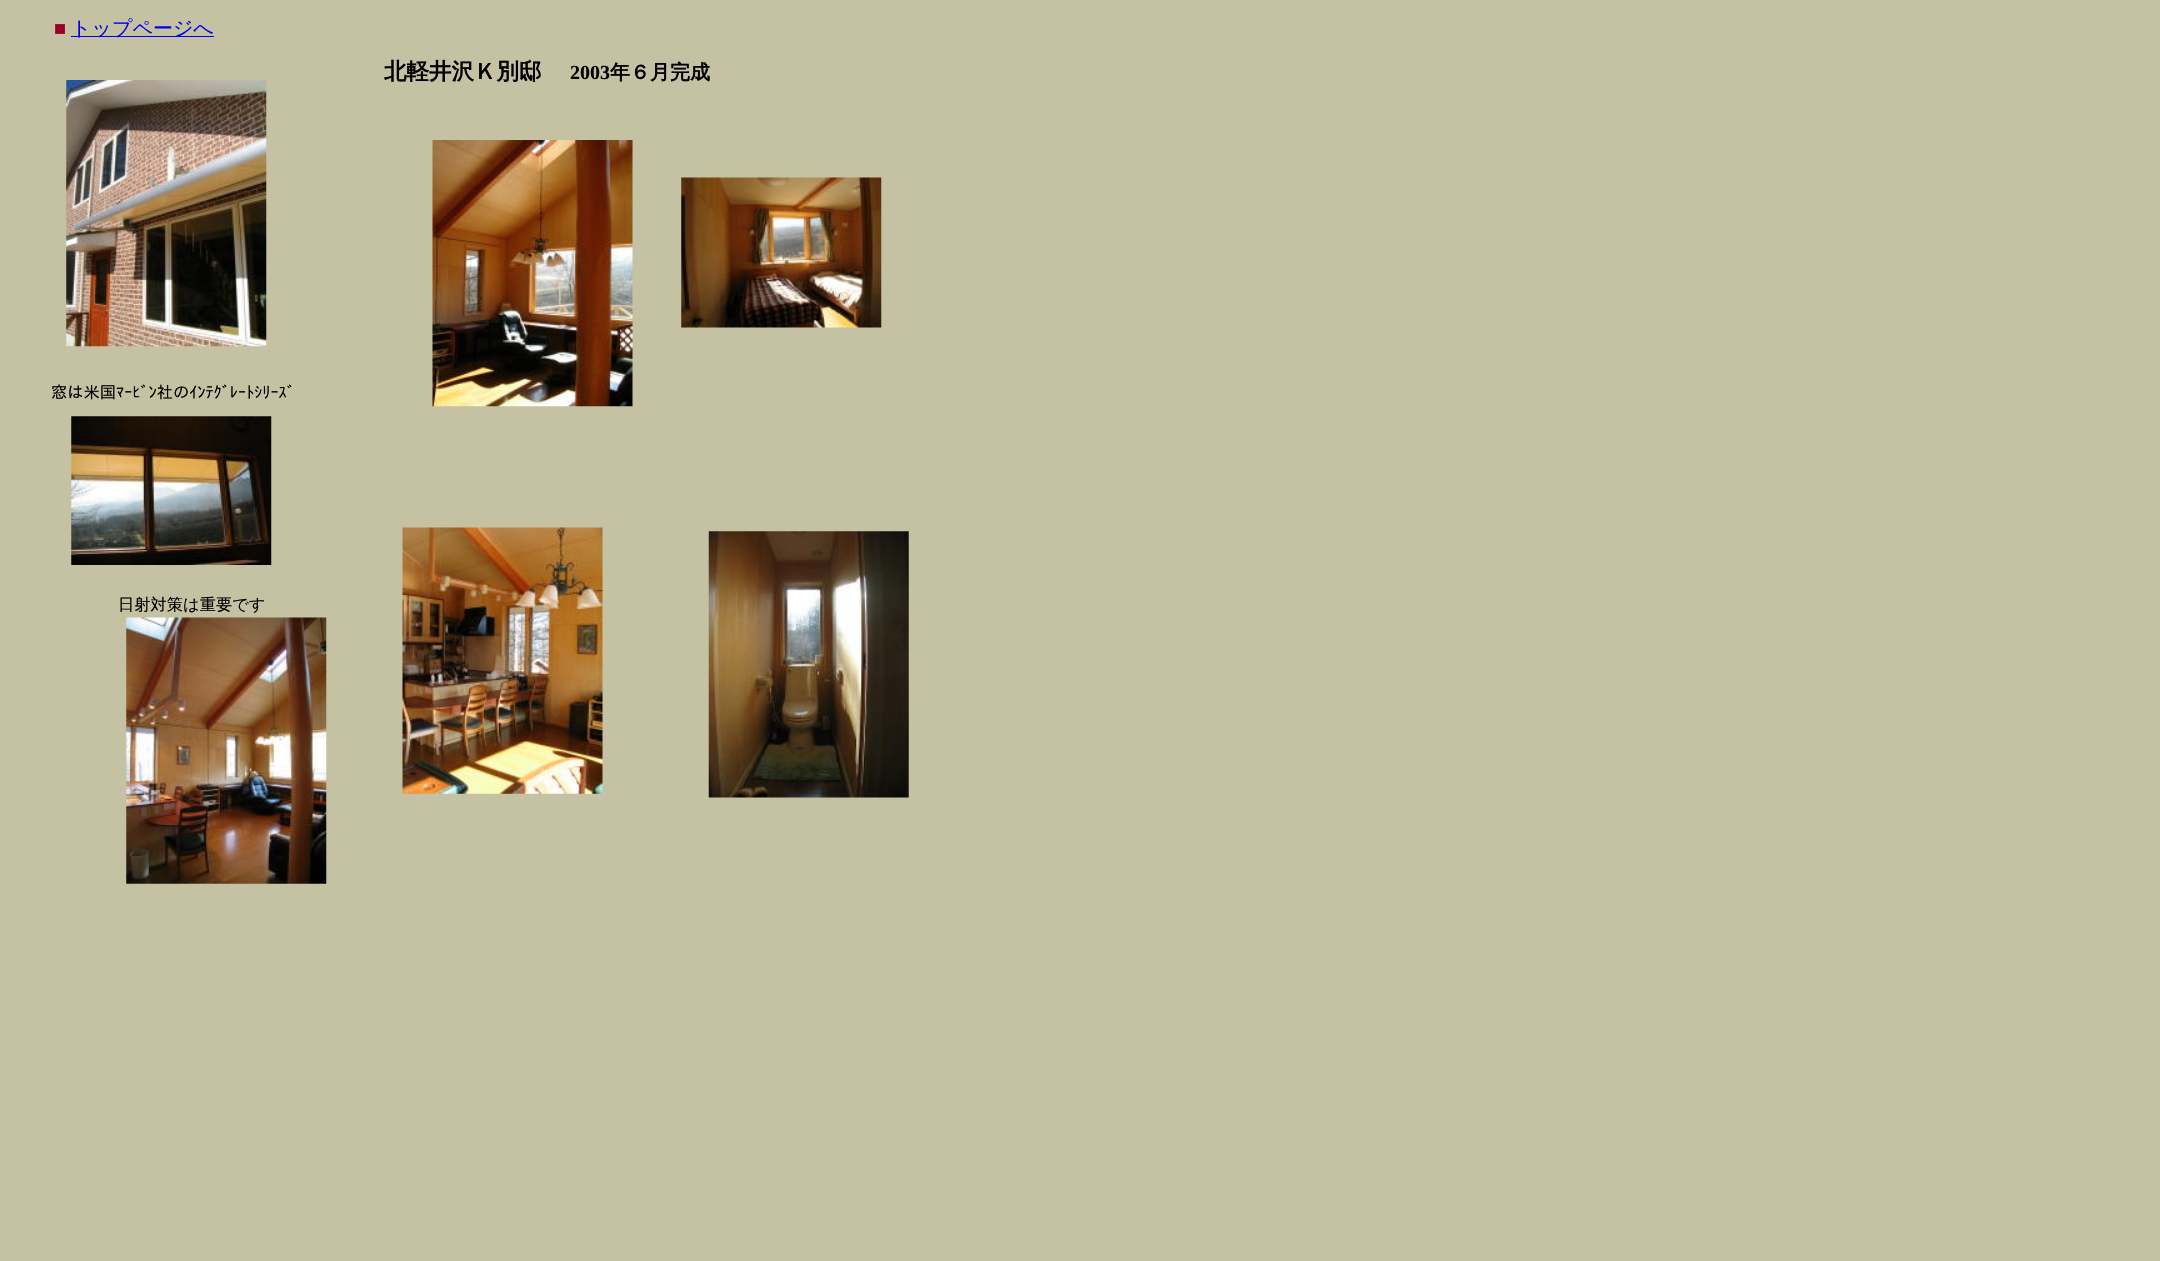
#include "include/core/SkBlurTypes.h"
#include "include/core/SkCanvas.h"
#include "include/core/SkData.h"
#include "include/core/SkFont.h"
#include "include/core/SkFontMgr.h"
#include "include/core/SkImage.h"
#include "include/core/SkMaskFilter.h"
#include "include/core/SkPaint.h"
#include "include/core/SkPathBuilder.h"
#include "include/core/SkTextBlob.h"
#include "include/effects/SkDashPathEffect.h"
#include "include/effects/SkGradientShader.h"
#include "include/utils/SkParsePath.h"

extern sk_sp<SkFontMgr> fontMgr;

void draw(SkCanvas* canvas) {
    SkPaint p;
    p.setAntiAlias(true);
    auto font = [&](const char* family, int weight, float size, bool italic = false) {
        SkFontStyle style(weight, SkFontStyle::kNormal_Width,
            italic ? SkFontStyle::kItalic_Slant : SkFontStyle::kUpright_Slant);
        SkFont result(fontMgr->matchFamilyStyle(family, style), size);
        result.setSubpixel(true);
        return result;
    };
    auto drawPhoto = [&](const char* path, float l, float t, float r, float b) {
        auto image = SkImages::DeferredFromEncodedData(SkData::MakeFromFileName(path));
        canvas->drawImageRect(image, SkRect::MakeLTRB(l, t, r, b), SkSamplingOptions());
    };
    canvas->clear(0xFFC5C2A3);
    auto font1 = font("Liberation Serif", 400, 20);
    p.setColor(0xFF990026);
    canvas->drawString("■", 54, 35, font1, p);
    p.setColor(0xFF0000EE);
    canvas->drawRect(SkRect::MakeLTRB(71, 36, 214, 37), p);
    auto font2 = font("WenQuanYi Zen Hei", 500, 20);
    canvas->drawString("トップページへ", 71, 35, font2, p);
    auto font3 = font("WenQuanYi Zen Hei", 700, 22.5f);
    p.setColor(0xFF000000);
    canvas->drawString("北軽井沢Ｋ別邸", 384, 79, font3, p);
    auto font4 = font("Liberation Serif", 700, 20);
    canvas->drawString("2003", 570, 79, font4, p);
    auto font5 = font("WenQuanYi Zen Hei", 700, 20);
    canvas->drawString("年６月完成", 610, 79, font5, p);
    drawPhoto("media/1.png", 66, 80, 267, 347);
    drawPhoto("media/2.png", 432, 140, 633, 407);
    drawPhoto("media/3.png", 681, 177, 882, 328);
    auto font6 = font("IPAGothic", 400, 16.25f);
    canvas->drawString("窓は米国ﾏｰﾋﾞﾝ社のｲﾝﾃｸﾞﾚｰﾄｼﾘｰｽﾞ", 51, 398, font6, p);
    drawPhoto("media/4.png", 71, 416, 272, 565);
    auto font7 = font("WenQuanYi Zen Hei", 500, 16.25f);
    canvas->drawString("日射対策は重要です", 118, 610, font7, p);
    drawPhoto("media/5.png", 402, 527, 603, 794);
    drawPhoto("media/6.png", 708, 531, 909, 798);
    drawPhoto("media/7.png", 126, 617, 327, 884);
}
